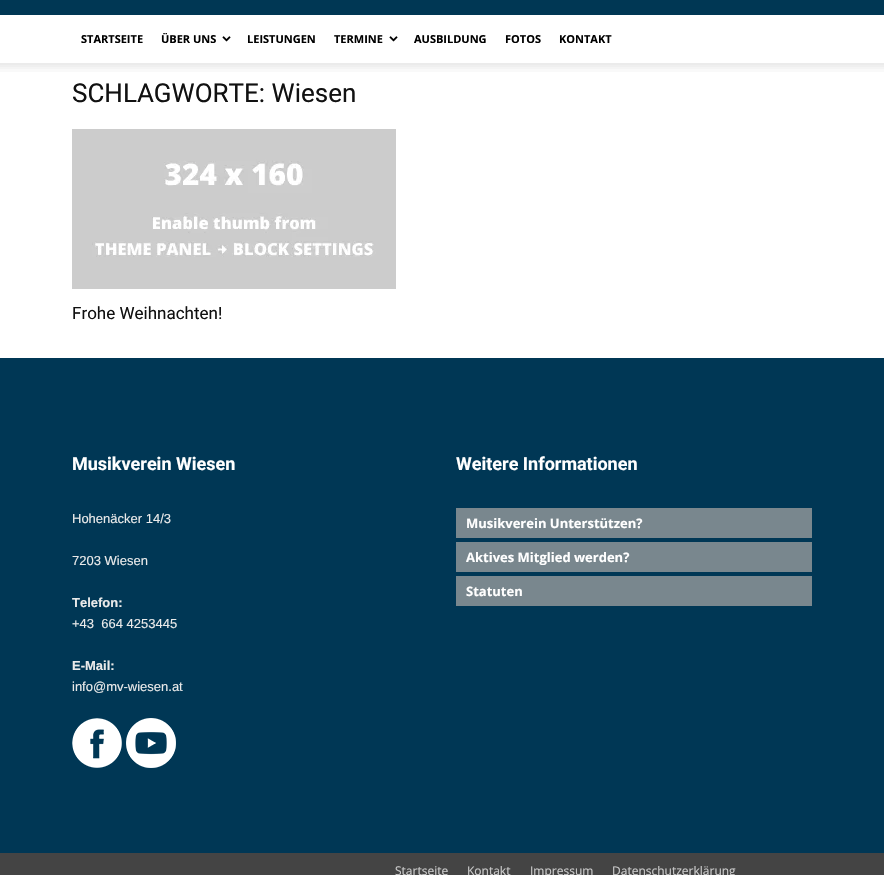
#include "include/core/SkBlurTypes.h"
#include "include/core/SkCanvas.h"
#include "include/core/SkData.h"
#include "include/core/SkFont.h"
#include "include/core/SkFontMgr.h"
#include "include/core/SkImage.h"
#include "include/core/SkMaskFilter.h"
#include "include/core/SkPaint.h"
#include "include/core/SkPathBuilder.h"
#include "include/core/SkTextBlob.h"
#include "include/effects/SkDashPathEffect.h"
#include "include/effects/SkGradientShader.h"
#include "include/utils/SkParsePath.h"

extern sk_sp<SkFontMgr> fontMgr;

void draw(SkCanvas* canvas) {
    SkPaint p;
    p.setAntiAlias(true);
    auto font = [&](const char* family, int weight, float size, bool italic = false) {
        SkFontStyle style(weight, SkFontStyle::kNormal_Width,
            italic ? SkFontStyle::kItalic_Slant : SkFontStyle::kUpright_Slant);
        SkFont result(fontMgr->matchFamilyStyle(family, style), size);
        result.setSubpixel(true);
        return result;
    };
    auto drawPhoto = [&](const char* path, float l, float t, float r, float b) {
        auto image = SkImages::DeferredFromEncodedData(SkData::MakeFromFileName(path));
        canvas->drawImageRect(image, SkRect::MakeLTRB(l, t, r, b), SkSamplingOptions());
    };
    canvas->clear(0xFFFFFFFF);
    p.setColor(0xFF003754);
    canvas->drawRect(SkRect::MakeLTRB(0, 0, 884, 15), p);
    auto font1 = font("Open Sans", 700, 11);
    p.setColor(0xFF000000);
    canvas->drawString("STARTSEITE", 81, 43, font1, p);
    canvas->drawString("ÜBER UNS", 161, 43, font1, p);
    drawPhoto("media/1.png", 222, 36, 231, 42);
    canvas->drawString("LEISTUNGEN", 247, 43, font1, p);
    canvas->drawString("TERMINE", 334, 43, font1, p);
    drawPhoto("media/1.png", 389, 36, 398, 42);
    {
        const struct { const char* s; float x, y; } items[] = {
            {"AUSBILDUNG", 414, 43},
            {"FOTOS", 505, 43},
            {"KONTAKT", 559, 43},
        };
        for (auto [s, x, y] : items) {
            canvas->drawString(s, x, y, font1, p);
        }
    }
    drawPhoto("media/2.png", 0, 63, 884, 72);
    auto font2 = font("Roboto", 400, 26);
    p.setColor(0xFF111111);
    canvas->drawString("SCHLAGWORTE: Wiesen", 72, 102, font2, p);
    drawPhoto("media/3.png", 72, 129, 396, 289);
    auto font3 = font("Roboto", 400, 17);
    canvas->drawString("Frohe Weihnachten!", 72, 319, font3, p);
    p.setColor(0xFF003755);
    canvas->drawRect(SkRect::MakeLTRB(0, 358, 884, 853), p);
    auto font4 = font("Roboto", 700, 18);
    p.setColor(0xFFFFFFFF);
    canvas->drawString("Musikverein Wiesen", 72, 470, font4, p);
    auto font5 = font("Liberation Sans", 400, 13);
    p.setColor(0xFFEAEAEA);
    canvas->drawString("Hohenäcker 14/3", 72, 523, font5, p);
    canvas->drawString("7203 Wiesen", 72, 565, font5, p);
    auto font6 = font("Liberation Sans", 700, 13);
    canvas->drawString("Telefon:", 72, 607, font6, p);
    canvas->drawString("+43  664 4253445", 72, 628, font5, p);
    canvas->drawString("E-Mail:", 72, 670, font6, p);
    canvas->drawString("info@mv-wiesen.at", 72, 691, font5, p);
    drawPhoto("media/4.png", 72, 718, 122, 768);
    drawPhoto("media/5.png", 126, 718, 176, 768);
    p.setColor(0xFFFFFFFF);
    canvas->drawString("Weitere Informationen", 456, 470, font4, p);
    p.setColor(0xFF79878E);
    canvas->drawRect(SkRect::MakeLTRB(456, 508, 812, 538), p);
    auto font7 = font("Open Sans", 700, 13);
    p.setColor(0xFFFFFFFF);
    canvas->drawString("Musikverein Unterstützen?", 466, 528, font7, p);
    p.setColor(0xFF79878E);
    canvas->drawRect(SkRect::MakeLTRB(456, 542, 812, 572), p);
    p.setColor(0xFFFFFFFF);
    canvas->drawString("Aktives Mitglied werden?", 466, 562, font7, p);
    p.setColor(0xFF79878E);
    canvas->drawRect(SkRect::MakeLTRB(456, 576, 812, 606), p);
    p.setColor(0xFFFFFFFF);
    canvas->drawString("Statuten", 466, 596, font7, p);
    p.setColor(0xFF444444);
    canvas->drawRect(SkRect::MakeLTRB(0, 853, 884, 875), p);
    auto font8 = font("Open Sans", 400, 12);
    p.setColor(0xFFCCCCCC);
    {
        const struct { const char* s; float x, y; } items[] = {
            {"Startseite", 395, 875},
            {"Kontakt", 467, 875},
            {"Impressum", 530, 875},
            {"Datenschutzerklärung", 612, 875},
        };
        for (auto [s, x, y] : items) {
            canvas->drawString(s, x, y, font8, p);
        }
    }
}
